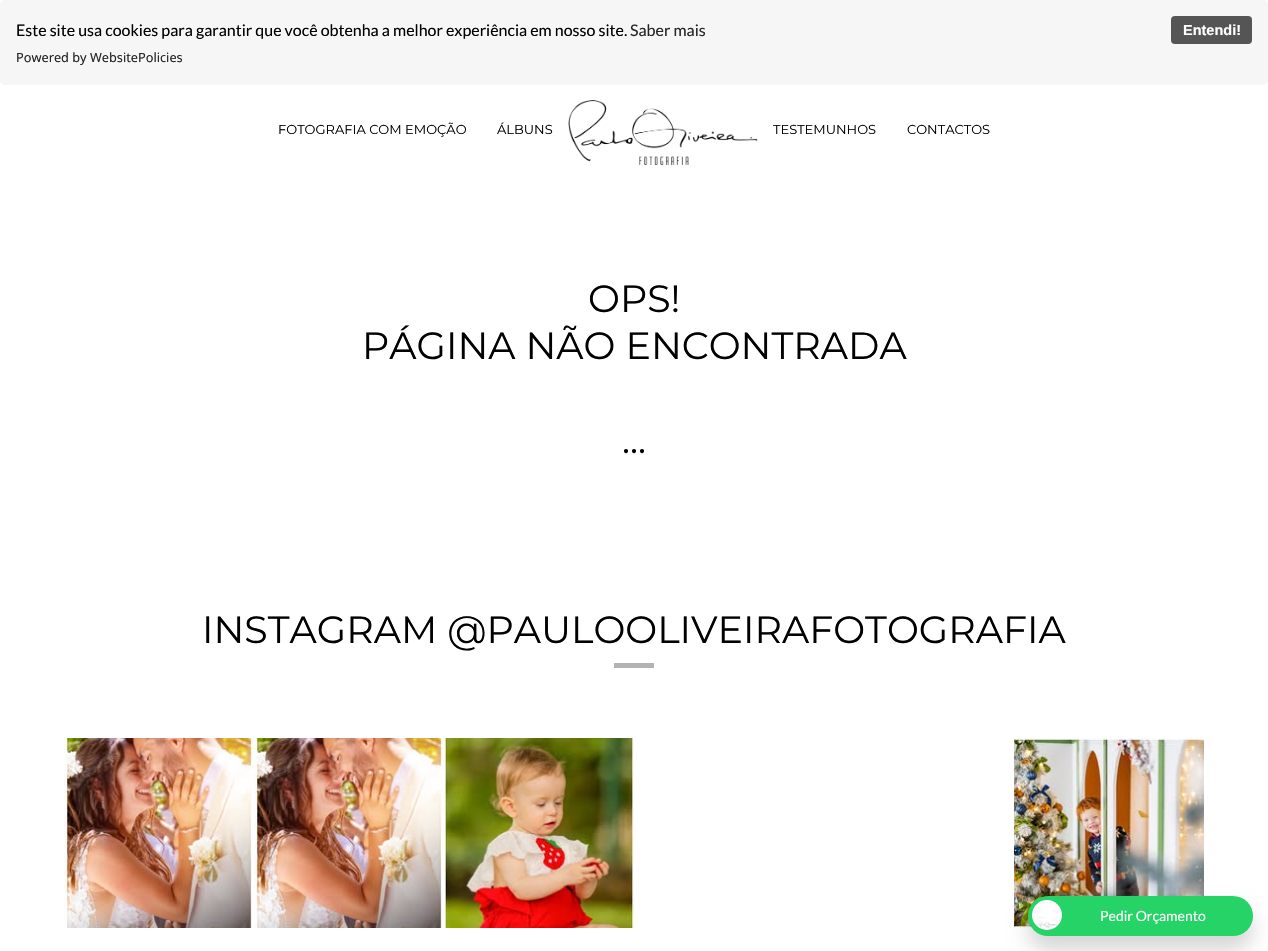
#include "include/core/SkBlurTypes.h"
#include "include/core/SkCanvas.h"
#include "include/core/SkData.h"
#include "include/core/SkFont.h"
#include "include/core/SkFontMgr.h"
#include "include/core/SkImage.h"
#include "include/core/SkMaskFilter.h"
#include "include/core/SkPaint.h"
#include "include/core/SkPathBuilder.h"
#include "include/core/SkTextBlob.h"
#include "include/effects/SkDashPathEffect.h"
#include "include/effects/SkGradientShader.h"
#include "include/utils/SkParsePath.h"

extern sk_sp<SkFontMgr> fontMgr;

void draw(SkCanvas* canvas) {
    SkPaint p;
    p.setAntiAlias(true);
    auto font = [&](const char* family, int weight, float size, bool italic = false) {
        SkFontStyle style(weight, SkFontStyle::kNormal_Width,
            italic ? SkFontStyle::kItalic_Slant : SkFontStyle::kUpright_Slant);
        SkFont result(fontMgr->matchFamilyStyle(family, style), size);
        result.setSubpixel(true);
        return result;
    };
    auto drawPhoto = [&](const char* path, float l, float t, float r, float b) {
        auto image = SkImages::DeferredFromEncodedData(SkData::MakeFromFileName(path));
        canvas->drawImageRect(image, SkRect::MakeLTRB(l, t, r, b), SkSamplingOptions());
    };
    canvas->clear(0xFFFFFFFF);
    p.setColor(0xFFF6F6F6);
    canvas->drawRoundRect(SkRect::MakeLTRB(0, 0, 1268, 85), 5, 5, p);
    auto font1 = font("Lato", 400, 16);
    p.setColor(0xFF000000);
    canvas->drawString("Este site usa cookies para garantir que você obtenha a melhor experiência em nosso site.", 16, 36, font1, p);
    p.setColor(0xFF252525);
    canvas->drawString("Saber mais", 630, 36, font1, p);
    p.setColor(0xFF555555);
    canvas->drawRoundRect(SkRect::MakeLTRB(1171, 16, 1252, 44), 4, 4, p);
    auto font2 = font("Liberation Sans", 700, 14.5f);
    p.setColor(0xFFFFFFFF);
    canvas->drawString("Entendi!", 1183, 35, font2, p);
    auto font3 = font("Noto Sans", 400, 12.75f);
    p.setColor(0xFF252525);
    canvas->drawString("Powered by WebsitePolicies", 16, 62, font3, p);
    auto font4 = font("Montserrat", 400, 13);
    p.setColor(0xFF000000);
    canvas->drawString("FOTOGRAFIA COM EMOÇÃO", 278, 134, font4, p);
    canvas->drawString("ÁLBUNS", 497, 134, font4, p);
    drawPhoto("media/1.png", 568, 100, 758, 165);
    canvas->drawString("TESTEMUNHOS", 773, 134, font4, p);
    canvas->drawString("CONTACTOS", 907, 134, font4, p);
    auto font5 = font("Montserrat", 400, 38);
    {
        const struct { const char* s; float x, y; } items[] = {
            {"OPS!", 588, 312},
            {"PÁGINA NÃO ENCONTRADA", 362, 359},
            {"...", 622, 453},
            {"INSTAGRAM @PAULOOLIVEIRAFOTOGRAFIA", 202, 643},
        };
        for (auto [s, x, y] : items) {
            canvas->drawString(s, x, y, font5, p);
        }
    }
    p.setColor(0xFFB3B3B3);
    canvas->drawRect(SkRect::MakeLTRB(614, 663, 654, 668), p);
    drawPhoto("media/2.png", 64, 738, 254, 928);
    drawPhoto("media/3.png", 254, 738, 444, 928);
    drawPhoto("media/4.png", 444, 738, 634, 928);
    drawPhoto("media/5.png", 1014, 738, 1204, 928);
    p.setColor(0x29000000);
    p.setMaskFilter(SkMaskFilter::MakeBlur(kNormal_SkBlurStyle, 10));
    canvas->drawRoundRect(SkRect::MakeLTRB(1028, 910, 1253, 950), 20, 20, p);
    p.setMaskFilter(nullptr);
    p.setColor(0xFF25D366);
    canvas->drawRoundRect(SkRect::MakeLTRB(1028, 896, 1253, 936), 20, 20, p);
    drawPhoto("media/6.png", 1032, 900, 1062, 930);
    auto font6 = font("Lato", 400, 14);
    p.setColor(0xFFFFFFFF);
    canvas->drawString("Pedir Orçamento", 1100, 921, font6, p);
}
